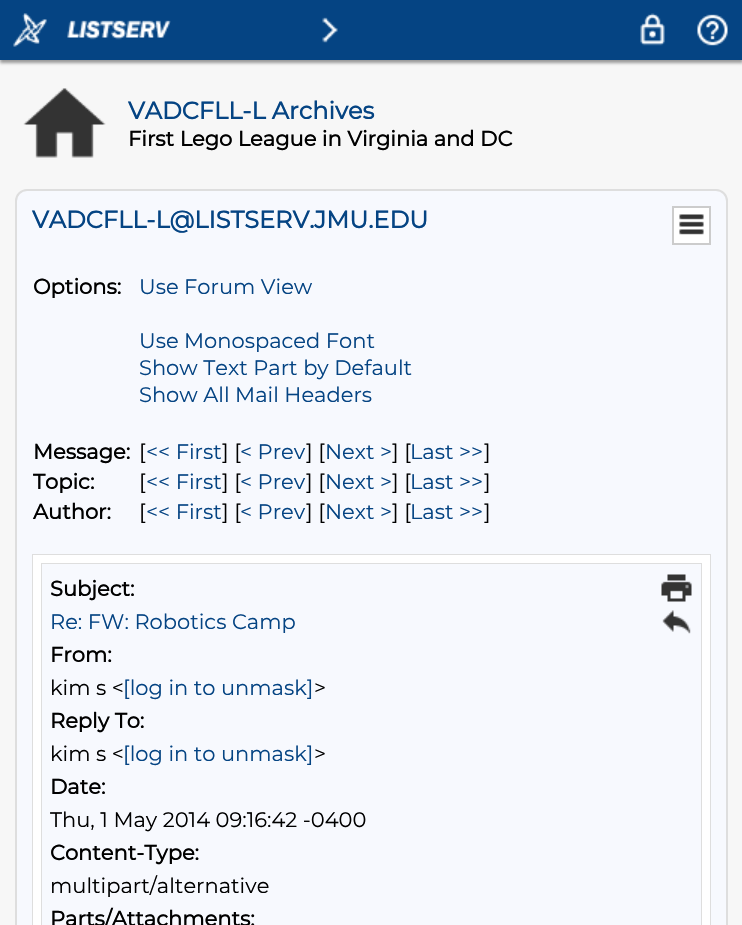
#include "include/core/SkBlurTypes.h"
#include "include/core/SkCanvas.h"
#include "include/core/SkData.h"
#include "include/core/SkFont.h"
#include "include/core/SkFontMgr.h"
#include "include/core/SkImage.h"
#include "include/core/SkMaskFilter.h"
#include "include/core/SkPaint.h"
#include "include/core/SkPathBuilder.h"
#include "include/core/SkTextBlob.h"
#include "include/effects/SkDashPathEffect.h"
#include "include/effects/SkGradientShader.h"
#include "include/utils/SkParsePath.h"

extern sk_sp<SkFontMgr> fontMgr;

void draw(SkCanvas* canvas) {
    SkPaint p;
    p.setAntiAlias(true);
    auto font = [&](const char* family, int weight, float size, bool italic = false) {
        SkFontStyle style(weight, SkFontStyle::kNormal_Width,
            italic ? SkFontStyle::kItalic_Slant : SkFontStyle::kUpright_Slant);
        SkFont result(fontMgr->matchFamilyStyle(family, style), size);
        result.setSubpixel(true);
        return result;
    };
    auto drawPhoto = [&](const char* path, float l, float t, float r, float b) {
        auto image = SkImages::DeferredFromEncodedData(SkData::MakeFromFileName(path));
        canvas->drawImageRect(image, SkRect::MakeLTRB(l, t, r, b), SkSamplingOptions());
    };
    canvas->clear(0xFFF7F7F7);
    p.setColor(0xFF999999);
    p.setMaskFilter(SkMaskFilter::MakeBlur(kNormal_SkBlurStyle, 1.5f));
    canvas->drawRect(SkRect::MakeLTRB(0, 3, 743, 63), p);
    p.setMaskFilter(nullptr);
    p.setColor(0xFF054483);
    canvas->drawRect(SkRect::MakeLTRB(0, 0, 742, 60), p);
    drawPhoto("media/1.png", 13, 13, 47, 47);
    drawPhoto("media/2.png", 67, 20, 171, 40);
    drawPhoto("media/3.png", 322, 17, 338, 43);
    drawPhoto("media/4.png", 640, 13, 665, 46);
    drawPhoto("media/5.png", 697, 14, 728, 46);
    drawPhoto("media/6.png", 23, 88, 106, 158);
    auto font1 = font("Montserrat", 700, 24);
    canvas->drawString("VADCFLL-L Archives", 128, 119, font1, p);
    auto font2 = font("Montserrat", 700, 21);
    p.setColor(0xFF000000);
    canvas->drawString("First Lego League in Virginia and DC", 128, 146, font2, p);
    p.setColor(0xFFF7F9FE);
    canvas->drawRoundRect(SkRect::MakeLTRB(16, 190, 727, 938), 11, 11, p);
    p.setStyle(SkPaint::kStroke_Style);
    p.setStrokeWidth(2);
    p.setColor(0xFFDEDEDE);
    canvas->drawRoundRect(SkRect::MakeLTRB(16, 190, 727, 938), 11, 11, p);
    p.setStyle(SkPaint::kFill_Style);
    p.setColor(0xFF054483);
    canvas->drawString("VADCFLL-L@LISTSERV.JMU.EDU", 32, 228, font1, p);
    p.setColor(0xFFFFFFFF);
    canvas->drawRect(SkRect::MakeLTRB(673, 207, 710, 244), p);
    p.setStyle(SkPaint::kStroke_Style);
    p.setColor(0xFFCCCCCC);
    canvas->drawRect(SkRect::MakeLTRB(673, 207, 710, 244), p);
    drawPhoto("media/7.png", 679, 214, 704, 235);
    p.setStyle(SkPaint::kFill_Style);
    p.setColor(0xFF000000);
    canvas->drawString("Options:", 33, 294, font2, p);
    auto font3 = font("Montserrat", 100, 21);
    p.setColor(0xFF054483);
    {
        const struct { const char* s; float x, y; } items[] = {
            {"Use Forum View", 139, 294},
            {"Use Monospaced Font", 139, 348},
            {"Show Text Part by Default", 139, 375},
            {"Show All Mail Headers", 139, 402},
        };
        for (auto [s, x, y] : items) {
            canvas->drawString(s, x, y, font3, p);
        }
    }
    p.setColor(0xFF000000);
    canvas->drawString("Message:", 33, 459, font2, p);
    canvas->drawString("[", 139, 459, font3, p);
    p.setColor(0xFF054483);
    canvas->drawString("<< First", 146, 459, font3, p);
    p.setColor(0xFF000000);
    canvas->drawString("] [", 222, 459, font3, p);
    p.setColor(0xFF054483);
    canvas->drawString("< Prev", 240, 459, font3, p);
    p.setColor(0xFF000000);
    canvas->drawString("] [", 306, 459, font3, p);
    p.setColor(0xFF054483);
    canvas->drawString("Next >", 325, 459, font3, p);
    p.setColor(0xFF000000);
    canvas->drawString("] [", 392, 459, font3, p);
    p.setColor(0xFF054483);
    canvas->drawString("Last >>", 410, 459, font3, p);
    p.setColor(0xFF000000);
    canvas->drawString("]", 484, 459, font3, p);
    canvas->drawString("Topic:", 33, 489, font2, p);
    canvas->drawString("[", 139, 489, font3, p);
    p.setColor(0xFF054483);
    canvas->drawString("<< First", 146, 489, font3, p);
    p.setColor(0xFF000000);
    canvas->drawString("] [", 222, 489, font3, p);
    p.setColor(0xFF054483);
    canvas->drawString("< Prev", 240, 489, font3, p);
    p.setColor(0xFF000000);
    canvas->drawString("] [", 306, 489, font3, p);
    p.setColor(0xFF054483);
    canvas->drawString("Next >", 325, 489, font3, p);
    p.setColor(0xFF000000);
    canvas->drawString("] [", 392, 489, font3, p);
    p.setColor(0xFF054483);
    canvas->drawString("Last >>", 410, 489, font3, p);
    p.setColor(0xFF000000);
    canvas->drawString("]", 484, 489, font3, p);
    canvas->drawString("Author:", 33, 519, font2, p);
    canvas->drawString("[", 139, 519, font3, p);
    p.setColor(0xFF054483);
    canvas->drawString("<< First", 146, 519, font3, p);
    p.setColor(0xFF000000);
    canvas->drawString("] [", 222, 519, font3, p);
    p.setColor(0xFF054483);
    canvas->drawString("< Prev", 240, 519, font3, p);
    p.setColor(0xFF000000);
    canvas->drawString("] [", 306, 519, font3, p);
    p.setColor(0xFF054483);
    canvas->drawString("Next >", 325, 519, font3, p);
    p.setColor(0xFF000000);
    canvas->drawString("] [", 392, 519, font3, p);
    p.setColor(0xFF054483);
    canvas->drawString("Last >>", 410, 519, font3, p);
    p.setColor(0xFF000000);
    canvas->drawString("]", 484, 519, font3, p);
    p.setStyle(SkPaint::kStroke_Style);
    p.setColor(0xFFDEDEDE);
    canvas->drawRect(SkRect::MakeLTRB(33, 555, 710, 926), p);
    p.setStyle(SkPaint::kFill_Style);
    p.setColor(0xFFFFFFFF);
    canvas->drawRect(SkRect::MakeLTRB(33, 555, 710, 925), p);
    p.setStyle(SkPaint::kStroke_Style);
    p.setColor(0xFFDEDEDE);
    canvas->drawRect(SkRect::MakeLTRB(42, 564, 701, 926), p);
    p.setStyle(SkPaint::kFill_Style);
    p.setColor(0xFFF7F9FE);
    canvas->drawRect(SkRect::MakeLTRB(42, 564, 701, 925), p);
    p.setColor(0xFF000000);
    canvas->drawString("Subject:", 50, 596, font2, p);
    p.setColor(0xFF054483);
    canvas->drawString("Re: FW: Robotics Camp", 50, 629, font3, p);
    p.setColor(0xFF000000);
    canvas->drawString("From:", 50, 662, font2, p);
    canvas->drawString("kim s <", 50, 695, font3, p);
    p.setColor(0xFF054483);
    canvas->drawString("[log in to unmask]", 123, 695, font3, p);
    p.setColor(0xFF000000);
    canvas->drawString(">", 314, 695, font3, p);
    canvas->drawString("Reply To:", 50, 728, font2, p);
    canvas->drawString("kim s <", 50, 761, font3, p);
    p.setColor(0xFF054483);
    canvas->drawString("[log in to unmask]", 123, 761, font3, p);
    p.setColor(0xFF000000);
    canvas->drawString(">", 314, 761, font3, p);
    canvas->drawString("Date:", 50, 794, font2, p);
    canvas->drawString("Thu, 1 May 2014 09:16:42 -0400", 50, 827, font3, p);
    canvas->drawString("Content-Type:", 50, 860, font2, p);
    canvas->drawString("multipart/alternative", 50, 893, font3, p);
    canvas->drawString("Parts/Attachments:", 50, 926, font2, p);
    drawPhoto("media/8.png", 661, 574, 692, 602);
    drawPhoto("media/9.png", 662, 610, 691, 634);
}
